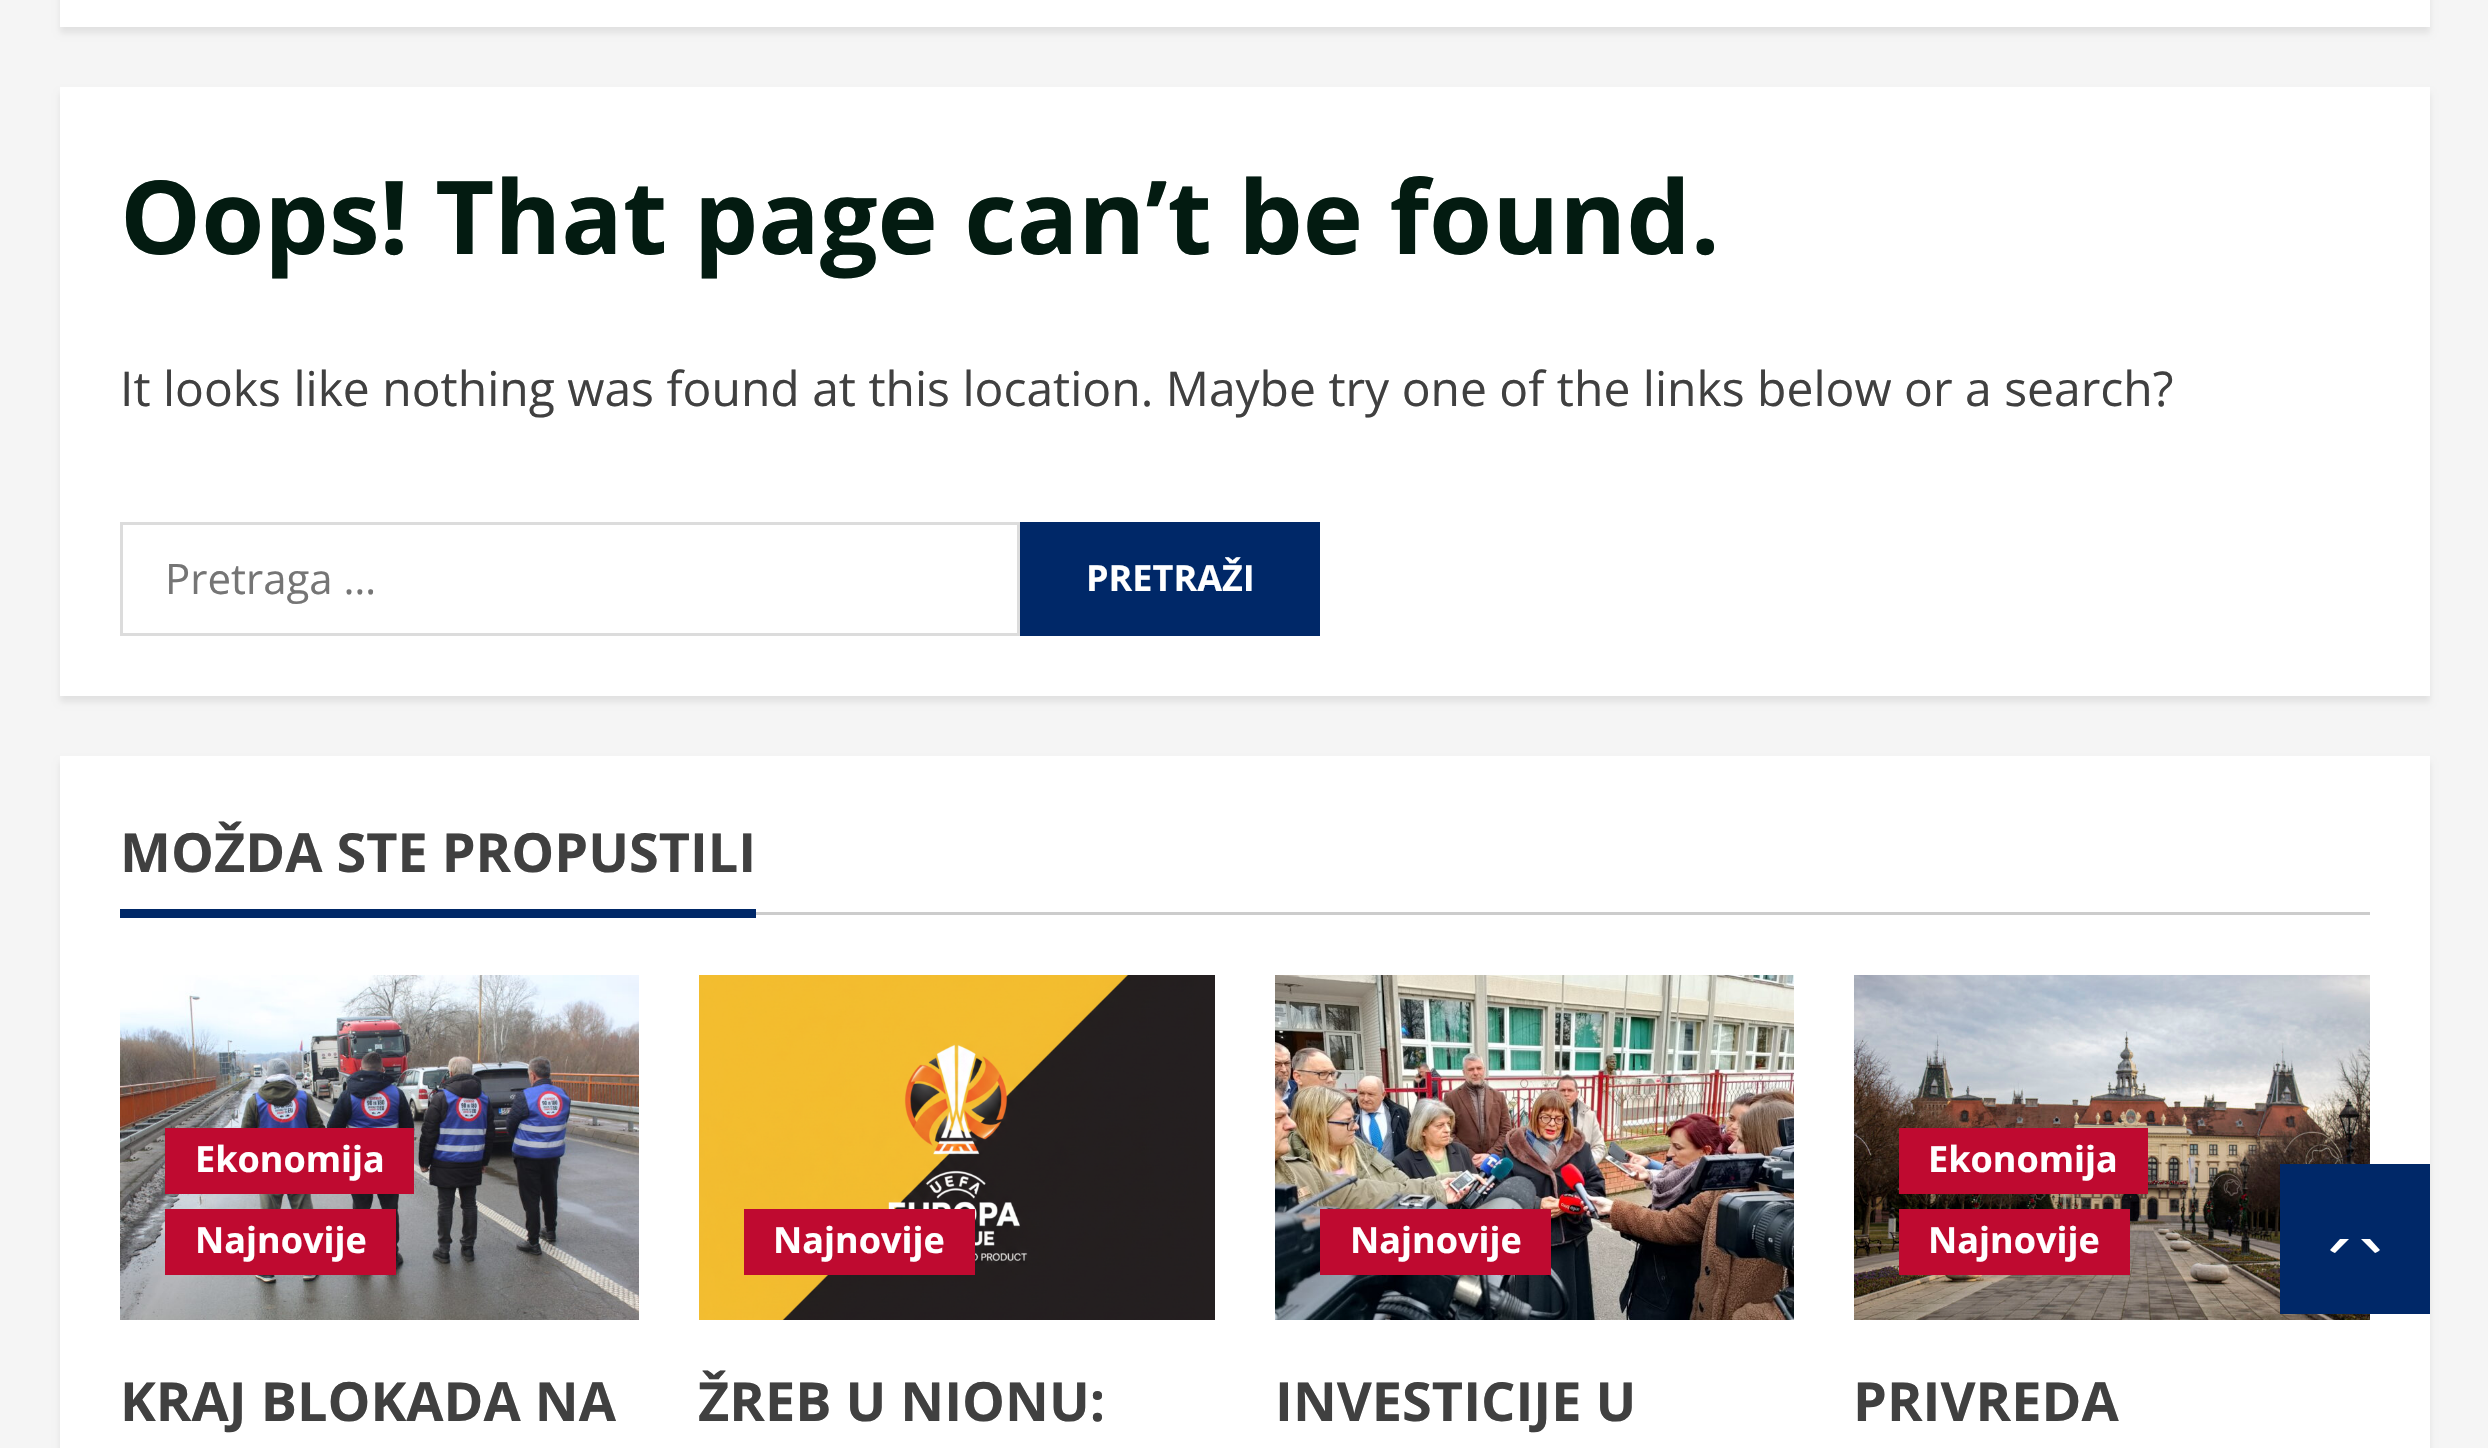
#include "include/core/SkBlurTypes.h"
#include "include/core/SkCanvas.h"
#include "include/core/SkData.h"
#include "include/core/SkFont.h"
#include "include/core/SkFontMgr.h"
#include "include/core/SkImage.h"
#include "include/core/SkMaskFilter.h"
#include "include/core/SkPaint.h"
#include "include/core/SkPathBuilder.h"
#include "include/core/SkTextBlob.h"
#include "include/effects/SkDashPathEffect.h"
#include "include/effects/SkGradientShader.h"
#include "include/utils/SkParsePath.h"

extern sk_sp<SkFontMgr> fontMgr;

void draw(SkCanvas* canvas) {
    SkPaint p;
    p.setAntiAlias(true);
    auto font = [&](const char* family, int weight, float size, bool italic = false) {
        SkFontStyle style(weight, SkFontStyle::kNormal_Width,
            italic ? SkFontStyle::kItalic_Slant : SkFontStyle::kUpright_Slant);
        SkFont result(fontMgr->matchFamilyStyle(family, style), size);
        result.setSubpixel(true);
        return result;
    };
    auto drawPhoto = [&](const char* path, float l, float t, float r, float b) {
        auto image = SkImages::DeferredFromEncodedData(SkData::MakeFromFileName(path));
        canvas->drawImageRect(image, SkRect::MakeLTRB(l, t, r, b), SkSamplingOptions());
    };
    canvas->clear(0xFFF5F5F5);
    p.setColor(0x14000000);
    p.setMaskFilter(SkMaskFilter::MakeBlur(kNormal_SkBlurStyle, 3));
    canvas->drawRect(SkRect::MakeLTRB(60, -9, 2430, 33), p);
    p.setMaskFilter(nullptr);
    p.setColor(0xFFFFFFFF);
    canvas->drawRect(SkRect::MakeLTRB(60, 0, 2430, 27), p);
    p.setColor(0x14000000);
    p.setMaskFilter(SkMaskFilter::MakeBlur(kNormal_SkBlurStyle, 3));
    canvas->drawRect(SkRect::MakeLTRB(60, 93, 2430, 702), p);
    p.setMaskFilter(nullptr);
    p.setColor(0xFFFFFFFF);
    canvas->drawRect(SkRect::MakeLTRB(60, 87, 2430, 696), p);
    auto font1 = font("Open Sans", 700, 102);
    p.setColor(0xFF031B11);
    canvas->drawString("Oops! That page can’t be found.", 120, 254, font1, p);
    auto font2 = font("Open Sans", 400, 48);
    p.setColor(0xFF404040);
    canvas->drawString("It looks like nothing was found at this location. Maybe try one of the links below or a search?", 120, 406, font2, p);
    p.setStyle(SkPaint::kStroke_Style);
    p.setStrokeWidth(3);
    p.setColor(0xFFDCDCDC);
    canvas->drawRect(SkRect::MakeLTRB(121.5f, 523.5f, 1018.5f, 634.5f), p);
    auto font3 = font("Open Sans", 400, 42);
    p.setStyle(SkPaint::kFill_Style);
    p.setColor(0xFF757575);
    canvas->drawString("Pretraga …", 165, 594, font3, p);
    p.setColor(0xFF002868);
    canvas->drawRect(SkRect::MakeLTRB(1020, 522, 1320, 636), p);
    auto font4 = font("Open Sans", 700, 36);
    p.setColor(0xFFFFFFFF);
    canvas->drawString("PRETRAŽI", 1086, 591, font4, p);
    p.setColor(0x14000000);
    p.setMaskFilter(SkMaskFilter::MakeBlur(kNormal_SkBlurStyle, 3));
    canvas->drawRect(SkRect::MakeLTRB(60, 762, 2430, 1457), p);
    p.setMaskFilter(nullptr);
    p.setColor(0xFFFFFFFF);
    canvas->drawRect(SkRect::MakeLTRB(60, 756, 2430, 1448), p);
    p.setColor(0xFFCCCCCC);
    canvas->drawRect(SkRect::MakeLTRB(756, 912, 2370, 915), p);
    auto font5 = font("Open Sans", 700, 54);
    p.setColor(0xFF404040);
    canvas->drawString("MOŽDA STE PROPUSTILI", 120, 872, font5, p);
    p.setColor(0xFF002868);
    canvas->drawRect(SkRect::MakeLTRB(120, 909, 756, 918), p);
    drawPhoto("media/1.png", 120, 975, 639, 1320);
    p.setColor(0xFFBF0A30);
    canvas->drawRect(SkRect::MakeLTRB(165, 1128, 414, 1194), p);
    p.setColor(0xFFFFFFFF);
    canvas->drawString("Ekonomija", 195, 1172, font4, p);
    p.setColor(0xFFBF0A30);
    canvas->drawRect(SkRect::MakeLTRB(165, 1209, 396, 1275), p);
    p.setColor(0xFFFFFFFF);
    canvas->drawString("Najnovije", 195, 1253, font4, p);
    p.setColor(0xFF404040);
    canvas->drawString("KRAJ BLOKADA NA", 120, 1421, font5, p);
    drawPhoto("media/2.png", 699, 975, 1215, 1320);
    p.setColor(0xFFBF0A30);
    canvas->drawRect(SkRect::MakeLTRB(744, 1209, 975, 1275), p);
    p.setColor(0xFFFFFFFF);
    canvas->drawString("Najnovije", 773, 1253, font4, p);
    p.setColor(0xFF404040);
    canvas->drawString("ŽREB U NIONU:", 698, 1421, font5, p);
    drawPhoto("media/3.png", 1275, 975, 1794, 1320);
    p.setColor(0xFFBF0A30);
    canvas->drawRect(SkRect::MakeLTRB(1320, 1209, 1551, 1275), p);
    p.setColor(0xFFFFFFFF);
    canvas->drawString("Najnovije", 1350, 1253, font4, p);
    p.setColor(0xFF404040);
    canvas->drawString("INVESTICIJE U", 1275, 1421, font5, p);
    drawPhoto("media/4.png", 1854, 975, 2370, 1320);
    p.setColor(0xFFBF0A30);
    canvas->drawRect(SkRect::MakeLTRB(1899, 1128, 2148, 1194), p);
    p.setColor(0xFFFFFFFF);
    canvas->drawString("Ekonomija", 1928, 1172, font4, p);
    p.setColor(0xFFBF0A30);
    canvas->drawRect(SkRect::MakeLTRB(1899, 1209, 2130, 1275), p);
    p.setColor(0xFFFFFFFF);
    canvas->drawString("Najnovije", 1928, 1253, font4, p);
    p.setColor(0xFF404040);
    canvas->drawString("PRIVREDA", 1853, 1421, font5, p);
    p.setColor(0xFF002868);
    canvas->drawRect(SkRect::MakeLTRB(2280, 1164, 2430, 1314), p);
    p.setColor(0xFFFFFFFF);
    canvas->drawPath(SkPathBuilder().moveTo(2340, 1254).lineTo(2370, 1254).cubicTo(2374, 1254, 2378, 1252, 2380, 1250).lineTo(2370, 1239).lineTo(2340, 1239).lineTo(2330, 1250).cubicTo(2332, 1252, 2336, 1254, 2340, 1254).close().detach(), p);
    p.setColor(0xFF002868);
    canvas->drawPath(SkPathBuilder().moveTo(2385, 1263).lineTo(2325, 1263).lineTo(2355, 1233).close().detach(), p);
}
